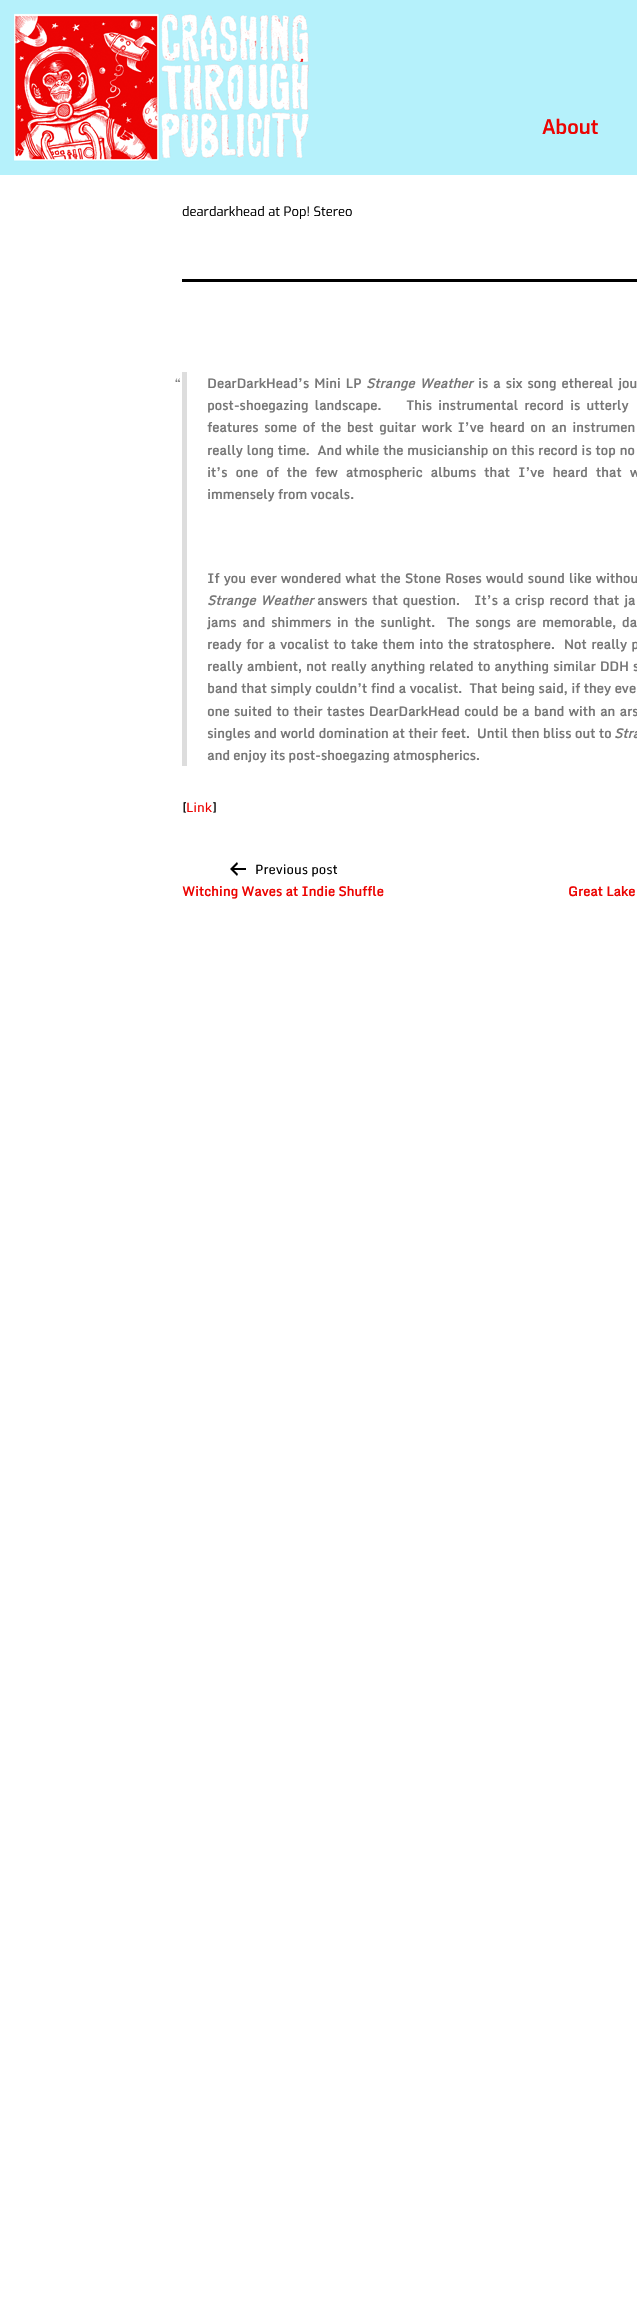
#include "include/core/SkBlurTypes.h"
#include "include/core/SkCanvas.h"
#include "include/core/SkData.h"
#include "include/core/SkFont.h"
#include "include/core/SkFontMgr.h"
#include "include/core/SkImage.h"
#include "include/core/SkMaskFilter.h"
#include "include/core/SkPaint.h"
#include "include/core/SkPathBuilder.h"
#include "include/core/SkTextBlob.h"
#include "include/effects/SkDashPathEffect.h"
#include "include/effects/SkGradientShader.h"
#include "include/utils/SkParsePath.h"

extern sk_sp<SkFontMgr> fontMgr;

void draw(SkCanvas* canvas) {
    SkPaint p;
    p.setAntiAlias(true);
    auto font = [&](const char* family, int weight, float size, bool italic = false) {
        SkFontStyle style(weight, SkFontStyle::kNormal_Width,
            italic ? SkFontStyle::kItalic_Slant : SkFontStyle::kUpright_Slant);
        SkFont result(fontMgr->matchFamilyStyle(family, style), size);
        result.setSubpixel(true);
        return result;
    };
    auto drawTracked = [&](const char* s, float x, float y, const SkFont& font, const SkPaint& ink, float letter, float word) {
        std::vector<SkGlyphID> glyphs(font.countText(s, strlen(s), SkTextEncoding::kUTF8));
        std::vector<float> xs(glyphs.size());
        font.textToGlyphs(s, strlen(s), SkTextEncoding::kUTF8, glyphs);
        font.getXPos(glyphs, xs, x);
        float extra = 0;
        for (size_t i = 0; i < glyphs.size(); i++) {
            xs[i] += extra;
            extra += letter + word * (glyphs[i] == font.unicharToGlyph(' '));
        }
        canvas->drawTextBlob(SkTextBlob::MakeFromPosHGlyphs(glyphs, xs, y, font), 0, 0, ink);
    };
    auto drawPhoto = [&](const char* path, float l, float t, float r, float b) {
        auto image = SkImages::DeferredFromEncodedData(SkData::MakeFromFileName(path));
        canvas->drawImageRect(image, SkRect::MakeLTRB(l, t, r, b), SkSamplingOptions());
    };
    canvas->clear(0xFFFFFFFF);
    p.setColor(0xFFB5F1FB);
    canvas->drawRect(SkRect::MakeLTRB(0, 0, 637, 175), p);
    drawPhoto("media/1.png", 14, 13, 310, 162);
    auto font1 = font("Exo", 600, 20);
    p.setColor(0xFFEC0402);
    canvas->drawString("About", 542, 134, font1, p);
    p.setColor(0xFF000000);
    canvas->drawRect(SkRect::MakeLTRB(182, 279, 637, 282), p);
    auto font2 = font("Exo", 400, 13);
    canvas->drawString("deardarkhead at Pop! Stereo", 182, 216, font2, p);
    p.setColor(0xFFDDDDDD);
    canvas->drawRect(SkRect::MakeLTRB(182, 372, 187, 766), p);
    auto font3 = font("Monda", 400, 13);
    p.setColor(0xFF777777);
    canvas->drawString("“", 174, 388, font3, p);
    auto font4 = font("Monda", 700, 13);
    drawTracked("DearDarkHead’s Mini LP", 207, 388, font4, p, 0, 1.75f);
    auto font5 = font("Monda", 700, 13, true);
    drawTracked("Strange Weather", 366, 388, font5, p, 0, 1.75f);
    drawTracked("is a six song ethereal jou", 478, 388, font4, p, 0, 1.75f);
    drawTracked("post-shoegazing landscape.    This instrumental record is utterly", 207, 410, font4, p, 0, 3);
    drawTracked("features some of the best guitar work I’ve heard on an instrumen", 207, 432, font4, p, 0, 2.5f);
    drawTracked("really long time.  And while the musicianship on this record is top no", 207, 455, font4, p, 0, 0.6f);
    drawTracked("it’s one of the few atmospheric albums that I’ve heard that w", 207, 477, font4, p, 0, 4.9f);
    canvas->drawString("immensely from vocals.", 207, 499, font4, p);
    drawTracked("If you ever wondered what the Stone Roses would sound like withou", 207, 583, font4, p, 0, 1);
    drawTracked("Strange Weather", 207, 605, font5, p, 0, 1.5f);
    drawTracked("answers that question.   It’s a crisp record that ja", 317, 605, font4, p, 0, 1.5f);
    drawTracked("jams and shimmers in the sunlight.  The songs are memorable, da", 207, 627, font4, p, 0, 2.6f);
    drawTracked("ready for a vocalist to take them into the stratosphere.  Not really p", 207, 649, font4, p, 0, 1.3f);
    drawTracked("really ambient, not really anything related to anything similar DDH s", 207, 671, font4, p, 0, 0.9f);
    drawTracked("band that simply couldn’t find a vocalist.  That being said, if they eve", 207, 693, font4, p, 0, 0.3f);
    drawTracked("one suited to their tastes DearDarkHead could be a band with an ars", 207, 716, font4, p, 0, 1.1f);
    drawTracked("singles and world domination at their feet.  Until then bliss out to", 207, 738, font4, p, 0, 0.25f);
    canvas->drawString("Stra", 614, 738, font5, p);
    canvas->drawString("and enjoy its post-shoegazing atmospherics.", 207, 760, font4, p);
    p.setColor(0xFF000000);
    canvas->drawString("[", 182, 812, font3, p);
    p.setColor(0xFFEC0402);
    canvas->drawString("Link", 186, 812, font3, p);
    p.setColor(0xFF000000);
    canvas->drawString("]", 212, 812, font3, p);
    drawPhoto("media/2.png", 230, 862, 246, 876);
    canvas->drawString("Previous post", 255, 874, font3, p);
    p.setColor(0xFFEC0402);
    canvas->drawString("Witching Waves at Indie Shuffle", 182, 896, font4, p);
    canvas->drawString("Great Lake", 568, 896, font4, p);
}
